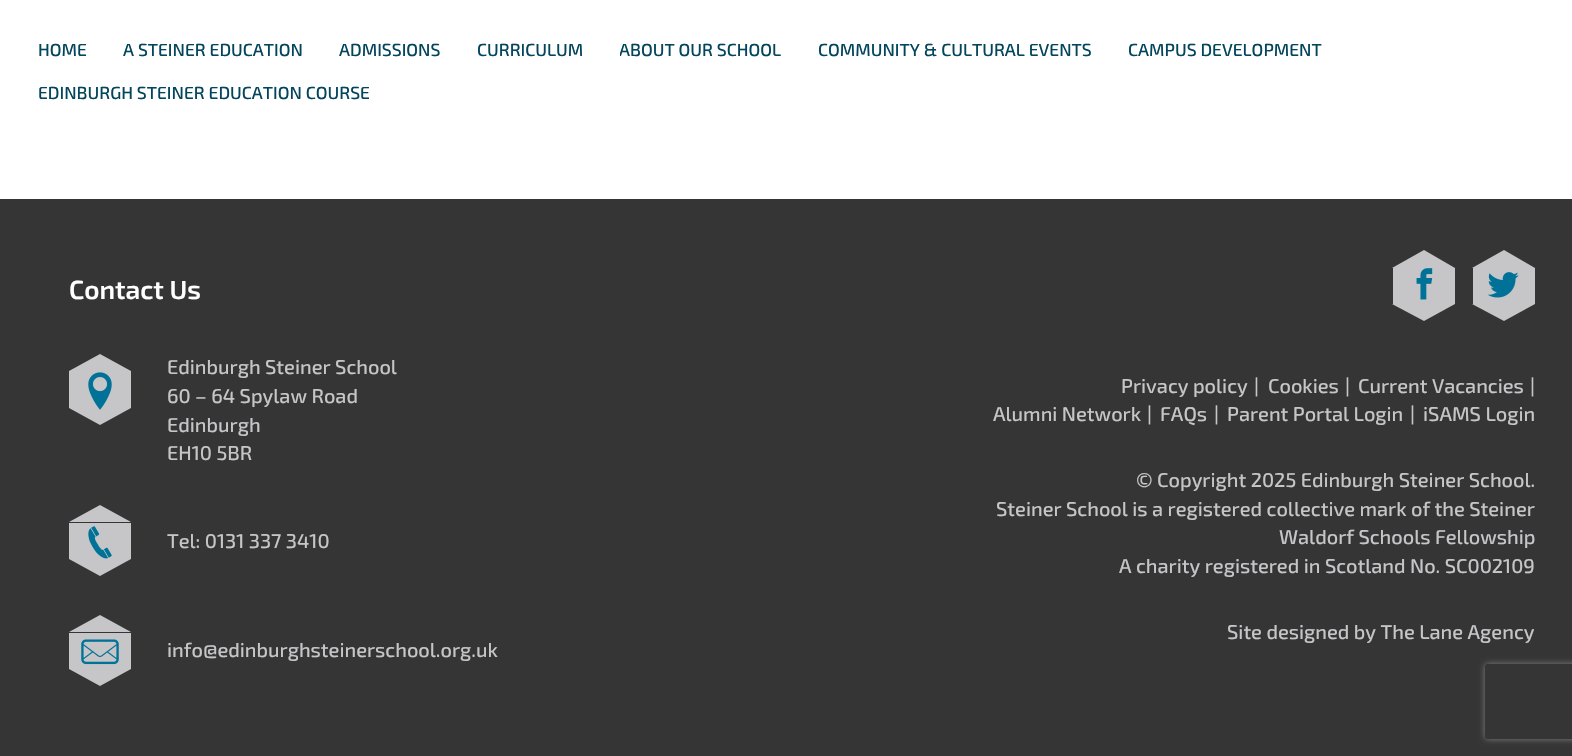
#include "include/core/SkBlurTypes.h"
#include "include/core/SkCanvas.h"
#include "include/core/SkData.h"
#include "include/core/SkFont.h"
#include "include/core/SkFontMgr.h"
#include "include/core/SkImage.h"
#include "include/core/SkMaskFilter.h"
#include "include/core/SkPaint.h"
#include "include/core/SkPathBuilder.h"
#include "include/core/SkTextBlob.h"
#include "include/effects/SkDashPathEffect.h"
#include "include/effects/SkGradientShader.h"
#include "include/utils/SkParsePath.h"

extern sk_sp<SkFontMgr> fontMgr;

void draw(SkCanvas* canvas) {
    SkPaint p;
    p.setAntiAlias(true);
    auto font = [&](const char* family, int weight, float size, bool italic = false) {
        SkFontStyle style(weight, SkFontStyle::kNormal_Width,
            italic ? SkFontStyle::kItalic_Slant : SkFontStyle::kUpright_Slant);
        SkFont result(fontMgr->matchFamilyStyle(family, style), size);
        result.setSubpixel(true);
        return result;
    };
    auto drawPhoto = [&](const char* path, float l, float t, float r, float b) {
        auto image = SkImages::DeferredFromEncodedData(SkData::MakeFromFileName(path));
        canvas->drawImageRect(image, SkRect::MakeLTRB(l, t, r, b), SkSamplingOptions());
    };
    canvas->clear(0xFFFFFFFF);
    auto font1 = font("Exo 2", 500, 17.5f);
    p.setColor(0xFF02455C);
    {
        const struct { const char* s; float x, y; } items[] = {
            {"HOME", 38, 56},
            {"A STEINER EDUCATION", 123, 56},
            {"ADMISSIONS", 339, 56},
            {"CURRICULUM", 477, 56},
        };
        for (auto [s, x, y] : items) {
            canvas->drawString(s, x, y, font1, p);
        }
    }
    canvas->save();
    canvas->clipRect(SkRect::MakeLTRB(620, 38, 781, 75));
    canvas->drawString("ABOUT OUR SCHOOL", 619, 56, font1, p);
    canvas->restore();
    {
        const struct { const char* s; float x, y; } items[] = {
            {"COMMUNITY & CULTURAL EVENTS", 818, 56},
            {"CAMPUS DEVELOPMENT", 1128, 56},
            {"EDINBURGH STEINER EDUCATION COURSE", 38, 99},
        };
        for (auto [s, x, y] : items) {
            canvas->drawString(s, x, y, font1, p);
        }
    }
    p.setColor(0xFF353536);
    canvas->drawRect(SkRect::MakeLTRB(0, 199, 1572, 756), p);
    auto font2 = font("Exo 2", 600, 26.25f);
    p.setColor(0xFFFFFFFF);
    canvas->drawString("Contact Us", 69, 299, font2, p);
    p.setColor(0xFFC6C6C8);
    canvas->drawRect(SkRect::MakeLTRB(69, 371, 131, 408), p);
    canvas->drawPath(SkPathBuilder().moveTo(131, 371).lineTo(69, 371).lineTo(100, 354).close().detach(), p);
    canvas->drawPath(SkPathBuilder().moveTo(69, 408).lineTo(131, 408).lineTo(100, 425).close().detach(), p);
    drawPhoto("media/1.png", 88, 372, 112, 410);
    auto font3 = font("Exo 2", 500, 20);
    {
        const struct { const char* s; float x, y; } items[] = {
            {"Edinburgh Steiner School", 167, 374},
            {"60 – 64 Spylaw Road", 167, 403},
            {"Edinburgh", 167, 432},
            {"EH10 5BR", 167, 460},
        };
        for (auto [s, x, y] : items) {
            canvas->drawString(s, x, y, font3, p);
        }
    }
    canvas->drawRect(SkRect::MakeLTRB(69, 523, 131, 559), p);
    canvas->drawPath(SkPathBuilder().moveTo(131, 522).lineTo(69, 522).lineTo(100, 505).close().detach(), p);
    drawPhoto("media/2.png", 88, 526, 112, 559);
    canvas->drawPath(SkPathBuilder().moveTo(69, 559).lineTo(131, 559).lineTo(100, 576).close().detach(), p);
    canvas->drawString("Tel: 0131 337 3410", 167, 548, font3, p);
    canvas->drawRect(SkRect::MakeLTRB(69, 633, 131, 669), p);
    canvas->drawPath(SkPathBuilder().moveTo(131, 632).lineTo(69, 632).lineTo(100, 615).close().detach(), p);
    drawPhoto("media/3.png", 81, 639, 119, 665);
    canvas->drawPath(SkPathBuilder().moveTo(69, 669).lineTo(131, 669).lineTo(100, 686).close().detach(), p);
    canvas->drawString("info@edinburghsteinerschool.org.uk", 167, 657, font3, p);
    canvas->drawRect(SkRect::MakeLTRB(1393, 268, 1455, 304), p);
    canvas->drawPath(SkPathBuilder().moveTo(1455, 268).lineTo(1392, 268).lineTo(1424, 250).close().detach(), p);
    drawPhoto("media/4.png", 1416, 268, 1433, 300);
    canvas->drawPath(SkPathBuilder().moveTo(1392, 304).lineTo(1455, 304).lineTo(1424, 321).close().detach(), p);
    canvas->drawRect(SkRect::MakeLTRB(1473, 268, 1535, 304), p);
    canvas->drawPath(SkPathBuilder().moveTo(1535, 268).lineTo(1472, 268).lineTo(1504, 250).close().detach(), p);
    drawPhoto("media/5.png", 1487, 272, 1519, 298);
    canvas->drawPath(SkPathBuilder().moveTo(1472, 304).lineTo(1535, 304).lineTo(1504, 321).close().detach(), p);
    {
        const struct { const char* s; float x, y; } items[] = {
            {"Privacy policy", 1121, 393},
            {"|", 1254, 393},
            {"Cookies", 1268, 393},
            {"|", 1345, 393},
            {"Current Vacancies", 1358, 393},
            {"|", 1530, 393},
            {"Alumni Network", 993, 421},
            {"|", 1147, 421},
            {"FAQs", 1160, 421},
            {"|", 1214, 421},
            {"Parent Portal Login", 1227, 421},
            {"|", 1410, 421},
            {"iSAMS Login", 1423, 421},
            {"© Copyright 2025 Edinburgh Steiner School.", 1136, 487},
            {"Steiner School is a registered collective mark of the Steiner", 996, 516},
            {"Waldorf Schools Fellowship", 1279, 544},
            {"A charity registered in Scotland No. SC002109", 1119, 573},
            {"Site designed by The Lane Agency", 1227, 639},
        };
        for (auto [s, x, y] : items) {
            canvas->drawString(s, x, y, font3, p);
        }
    }
    canvas->save();
    canvas->clipPath(SkPathBuilder(SkPathFillType::kEvenOdd).moveTo(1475, 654).lineTo(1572, 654).lineTo(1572, 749).lineTo(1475, 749).close().moveTo(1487.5f, 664).lineTo(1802.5f, 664).cubicTo(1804, 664, 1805, 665, 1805, 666.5f).lineTo(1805, 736.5f).cubicTo(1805, 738, 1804, 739, 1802.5f, 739).lineTo(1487.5f, 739).cubicTo(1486, 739, 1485, 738, 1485, 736.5f).lineTo(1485, 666.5f).cubicTo(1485, 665, 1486, 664, 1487.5f, 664).close().detach(), true);
    p.setColor(0xFF808080);
    p.setMaskFilter(SkMaskFilter::MakeBlur(kNormal_SkBlurStyle, 3));
    canvas->drawRoundRect(SkRect::MakeLTRB(1485, 664, 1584, 739), 2.5f, 2.5f, p);
    p.setMaskFilter(nullptr);
    canvas->restore();
}
